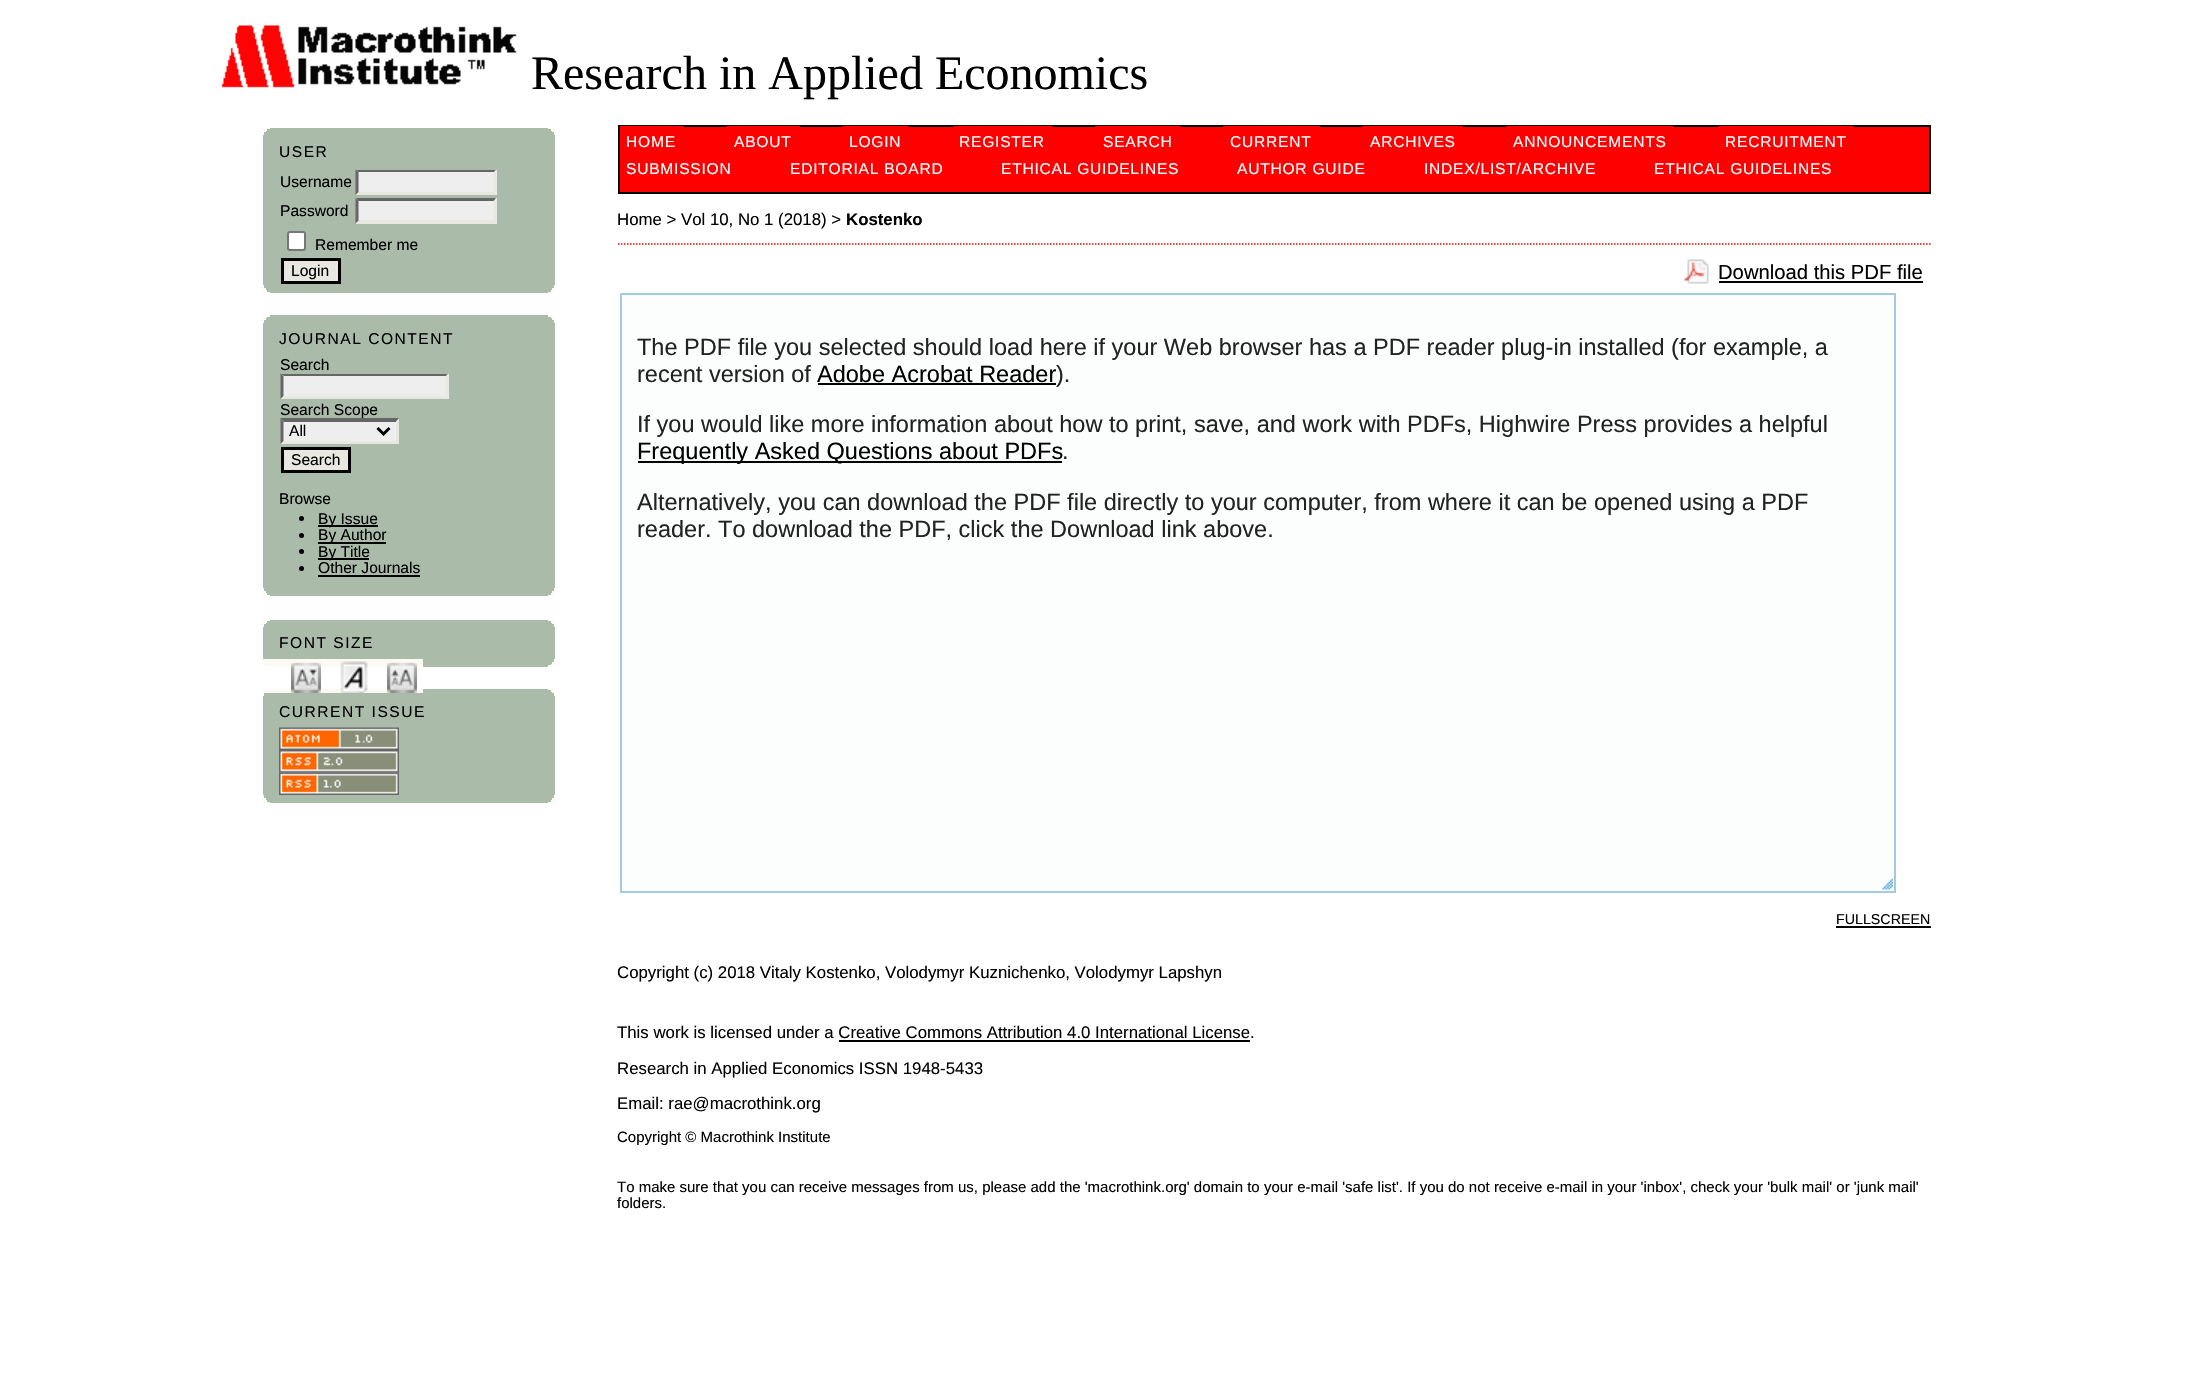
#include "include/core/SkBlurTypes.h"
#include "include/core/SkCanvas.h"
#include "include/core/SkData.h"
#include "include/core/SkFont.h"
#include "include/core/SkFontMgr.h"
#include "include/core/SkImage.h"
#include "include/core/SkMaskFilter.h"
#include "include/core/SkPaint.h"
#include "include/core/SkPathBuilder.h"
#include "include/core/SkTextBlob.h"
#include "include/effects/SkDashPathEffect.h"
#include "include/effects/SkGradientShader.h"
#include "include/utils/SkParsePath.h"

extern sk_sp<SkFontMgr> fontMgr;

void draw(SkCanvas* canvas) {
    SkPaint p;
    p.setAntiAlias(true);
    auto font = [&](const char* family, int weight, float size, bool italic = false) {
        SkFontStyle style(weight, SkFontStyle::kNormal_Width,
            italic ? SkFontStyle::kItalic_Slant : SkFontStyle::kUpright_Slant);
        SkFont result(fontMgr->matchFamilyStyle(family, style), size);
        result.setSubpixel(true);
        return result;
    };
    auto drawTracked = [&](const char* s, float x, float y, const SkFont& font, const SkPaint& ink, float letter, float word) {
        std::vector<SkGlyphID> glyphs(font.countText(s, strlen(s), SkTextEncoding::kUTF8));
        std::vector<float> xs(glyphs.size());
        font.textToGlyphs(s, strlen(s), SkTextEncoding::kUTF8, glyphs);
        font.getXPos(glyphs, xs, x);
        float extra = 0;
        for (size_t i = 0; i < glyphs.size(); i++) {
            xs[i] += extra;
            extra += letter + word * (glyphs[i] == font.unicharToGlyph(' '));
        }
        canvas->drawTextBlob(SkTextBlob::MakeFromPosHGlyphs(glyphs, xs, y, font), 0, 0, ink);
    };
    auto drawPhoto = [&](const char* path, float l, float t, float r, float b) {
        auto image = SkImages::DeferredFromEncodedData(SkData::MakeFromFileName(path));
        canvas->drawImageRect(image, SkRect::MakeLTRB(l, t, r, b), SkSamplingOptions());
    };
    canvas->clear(0xFFFFFFFF);
    drawPhoto("media/1.png", 221, 25, 517, 88);
    auto font1 = font("Liberation Serif", 400, 48);
    p.setColor(0xFF000000);
    canvas->drawString("Research in Applied Economics", 531, 89, font1, p);
    {
        const struct { float l, t, r, b; SkColor color; } items[] = {
            {263, 135, 555, 285, 0xFFAABBAA},
            {263, 128, 555, 135, 0xFFFBFBF3},
            {270, 128, 548, 129, 0xFFAABBAA},
            {267, 129, 551, 131, 0xFFAABBAA},
            {266, 131, 552, 132, 0xFFAABBAA},
            {264, 132, 554, 135, 0xFFAABBAA},
        };
        for (auto [l, t, r, b, color] : items) {
            p.setColor(color);
            canvas->drawRect(SkRect::MakeLTRB(l, t, r, b), p);
        }
    }
    auto font2 = font("Liberation Sans", 400, 15.6f);
    p.setColor(0xFF000000);
    drawTracked("USER", 279, 157, font2, p, 1.5f, 0);
    canvas->drawString("Username", 280, 187, font2, p);
    p.setColor(0xFFEEEEEE);
    canvas->drawRect(SkRect::MakeLTRB(356, 170, 497, 195), p);
    p.setColor(0xFF666666);
    canvas->drawPath(SkPathBuilder().moveTo(356, 170).lineTo(496, 170).lineTo(494, 172).lineTo(358, 172).close().detach(), p);
    p.setColor(0xFFE8E8E1);
    canvas->drawPath(SkPathBuilder().moveTo(496.5f, 169.5f).lineTo(496.5f, 195).lineTo(493.5f, 192).lineTo(493.5f, 172.5f).close().detach(), p);
    canvas->drawPath(SkPathBuilder().moveTo(496, 195).lineTo(356, 195).lineTo(358, 192).lineTo(494, 192).close().detach(), p);
    p.setColor(0xFF666666);
    canvas->drawPath(SkPathBuilder().moveTo(355.5f, 195).lineTo(355.5f, 169.5f).lineTo(358.5f, 172.5f).lineTo(358.5f, 192).close().detach(), p);
    p.setColor(0xFF000000);
    canvas->drawString("Password", 280, 216, font2, p);
    p.setColor(0xFFEEEEEE);
    canvas->drawRect(SkRect::MakeLTRB(356, 198, 497, 224), p);
    p.setColor(0xFF666666);
    canvas->drawPath(SkPathBuilder().moveTo(356, 198).lineTo(496, 198).lineTo(494, 201).lineTo(358, 201).close().detach(), p);
    p.setColor(0xFFE8E8E1);
    canvas->drawPath(SkPathBuilder().moveTo(496.5f, 198).lineTo(496.5f, 223.5f).lineTo(493.5f, 220.5f).lineTo(493.5f, 201).close().detach(), p);
    canvas->drawPath(SkPathBuilder().moveTo(496, 224).lineTo(356, 224).lineTo(358, 220).lineTo(494, 220).close().detach(), p);
    p.setColor(0xFF666666);
    canvas->drawPath(SkPathBuilder().moveTo(355.5f, 223.5f).lineTo(355.5f, 198).lineTo(358.5f, 201).lineTo(358.5f, 220.5f).close().detach(), p);
    p.setColor(0xFFFFFFFF);
    canvas->drawRoundRect(SkRect::MakeLTRB(288, 232, 305, 250), 2, 2, p);
    p.setStyle(SkPaint::kStroke_Style);
    p.setStrokeWidth(2);
    p.setColor(0xFF767676);
    canvas->drawRoundRect(SkRect::MakeLTRB(288, 232, 305, 250), 2, 2, p);
    p.setStyle(SkPaint::kFill_Style);
    p.setColor(0xFF000000);
    canvas->drawString("Remember me", 315, 250, font2, p);
    p.setColor(0xFFE8E8E1);
    canvas->drawRect(SkRect::MakeLTRB(282.5f, 259.5f, 339.5f, 282.5f), p);
    p.setStyle(SkPaint::kStroke_Style);
    p.setStrokeWidth(3);
    p.setColor(0xFF000000);
    canvas->drawRect(SkRect::MakeLTRB(282.5f, 259.5f, 339.5f, 282.5f), p);
    p.setStyle(SkPaint::kFill_Style);
    canvas->drawString("Login", 291, 276, font2, p);
    {
        const struct { float l, t, r, b; SkColor color; } items[] = {
            {263, 285, 555, 293, 0xFFFBFBF3},
            {264, 285, 554, 288, 0xFFAABBAA},
            {266, 288, 552, 290, 0xFFAABBAA},
            {267, 290, 551, 292, 0xFFAABBAA},
            {270, 292, 548, 293, 0xFFAABBAA},
            {263, 323, 555, 588, 0xFFAABBAA},
            {263, 315, 555, 323, 0xFFFBFBF3},
            {270, 315, 548, 317, 0xFFAABBAA},
            {267, 317, 551, 318, 0xFFAABBAA},
            {266, 318, 552, 320, 0xFFAABBAA},
            {264, 320, 554, 323, 0xFFAABBAA},
        };
        for (auto [l, t, r, b, color] : items) {
            p.setColor(color);
            canvas->drawRect(SkRect::MakeLTRB(l, t, r, b), p);
        }
    }
    p.setColor(0xFF000000);
    drawTracked("JOURNAL CONTENT", 279, 344, font2, p, 1.5f, 0);
    canvas->drawString("Search", 280, 370, font2, p);
    p.setColor(0xFFEEEEEE);
    canvas->drawRect(SkRect::MakeLTRB(281, 374, 449, 399), p);
    p.setColor(0xFF666666);
    canvas->drawPath(SkPathBuilder().moveTo(280, 374).lineTo(448, 374).lineTo(446, 376).lineTo(284, 376).close().detach(), p);
    p.setColor(0xFFE8E8E1);
    canvas->drawPath(SkPathBuilder().moveTo(448.5f, 373.5f).lineTo(448.5f, 399).lineTo(445.5f, 396).lineTo(445.5f, 376.5f).close().detach(), p);
    canvas->drawPath(SkPathBuilder().moveTo(448, 399).lineTo(280, 399).lineTo(284, 396).lineTo(446, 396).close().detach(), p);
    p.setColor(0xFF666666);
    canvas->drawPath(SkPathBuilder().moveTo(280.5f, 399).lineTo(280.5f, 373.5f).lineTo(283.5f, 376.5f).lineTo(283.5f, 396).close().detach(), p);
    p.setColor(0xFF000000);
    canvas->drawString("Search Scope", 280, 415, font2, p);
    p.setColor(0xFFEEEEEE);
    canvas->drawRect(SkRect::MakeLTRB(281, 419, 399, 444), p);
    p.setColor(0xFF666666);
    canvas->drawPath(SkPathBuilder().moveTo(280, 418).lineTo(399, 418).lineTo(396, 422).lineTo(284, 422).close().detach(), p);
    p.setColor(0xFFE8E8E1);
    canvas->drawPath(SkPathBuilder().moveTo(399, 418.5f).lineTo(399, 444).lineTo(396, 441).lineTo(396, 421.5f).close().detach(), p);
    canvas->drawPath(SkPathBuilder().moveTo(399, 444).lineTo(280, 444).lineTo(284, 441).lineTo(396, 441).close().detach(), p);
    p.setColor(0xFF666666);
    canvas->drawPath(SkPathBuilder().moveTo(280.5f, 444).lineTo(280.5f, 418.5f).lineTo(283.5f, 421.5f).lineTo(283.5f, 441).close().detach(), p);
    p.setStyle(SkPaint::kStroke_Style);
    p.setColor(0xFF000000);
    canvas->drawPath(SkPathBuilder().moveTo(377.5f, 428).lineTo(383.5f, 434).lineTo(389.5f, 428).detach(), p);
    p.setStyle(SkPaint::kFill_Style);
    canvas->drawString("All", 289, 436, font2, p);
    p.setColor(0xFFE8E8E1);
    canvas->drawRect(SkRect::MakeLTRB(282.5f, 448.5f, 349.5f, 471.5f), p);
    p.setStyle(SkPaint::kStroke_Style);
    p.setColor(0xFF000000);
    canvas->drawRect(SkRect::MakeLTRB(282.5f, 448.5f, 349.5f, 471.5f), p);
    p.setStyle(SkPaint::kFill_Style);
    canvas->drawString("Search", 291, 465, font2, p);
    canvas->drawString("Browse", 279, 504, font2, p);
    canvas->drawCircle(301.5f, 518.5f, 2.5f, p);
    canvas->drawRect(SkRect::MakeLTRB(318, 525, 378, 527), p);
    canvas->drawString("By Issue", 318, 524, font2, p);
    canvas->drawCircle(301.5f, 535.5f, 2.5f, p);
    canvas->drawRect(SkRect::MakeLTRB(318, 542, 386, 544), p);
    canvas->drawString("By Author", 318, 540, font2, p);
    canvas->drawCircle(301.5f, 551.5f, 2.5f, p);
    canvas->drawRect(SkRect::MakeLTRB(318, 558, 369, 560), p);
    canvas->drawString("By Title", 318, 557, font2, p);
    canvas->drawCircle(301.5f, 568.5f, 2.5f, p);
    canvas->drawString("Other Journals", 318, 573, font2, p);
    {
        const struct { float l, t, r, b; SkColor color; } items[] = {
            {318, 575, 420, 577, 0xFF000000},
            {263, 588, 555, 596, 0xFFFBFBF3},
            {264, 588, 554, 591, 0xFFAABBAA},
            {266, 591, 552, 593, 0xFFAABBAA},
            {267, 593, 551, 595, 0xFFAABBAA},
            {270, 595, 548, 596, 0xFFAABBAA},
            {263, 627, 555, 659, 0xFFAABBAA},
            {263, 620, 555, 627, 0xFFFBFBF3},
            {270, 620, 548, 621, 0xFFAABBAA},
            {267, 621, 551, 623, 0xFFAABBAA},
            {266, 623, 552, 624, 0xFFAABBAA},
            {264, 624, 554, 627, 0xFFAABBAA},
        };
        for (auto [l, t, r, b, color] : items) {
            p.setColor(color);
            canvas->drawRect(SkRect::MakeLTRB(l, t, r, b), p);
        }
    }
    p.setColor(0xFF000000);
    drawTracked("FONT SIZE", 279, 648, font2, p, 1.5f, 0);
    p.setColor(0xFFFBFBF3);
    canvas->drawRect(SkRect::MakeLTRB(263, 659, 555, 666), p);
    canvas->drawRect(SkRect::MakeLTRB(263, 689, 555, 696), p);
    drawPhoto("media/2.png", 291, 662, 321, 693);
    drawPhoto("media/3.png", 340, 661, 368, 693);
    drawPhoto("media/4.png", 387, 662, 417, 693);
    {
        const struct { float l, t, r, b; SkColor color; } items[] = {
            {423, 659, 554, 662, 0xFFAABBAA},
            {423, 662, 552, 664, 0xFFAABBAA},
            {423, 664, 551, 665, 0xFFAABBAA},
            {423, 665, 548, 667, 0xFFAABBAA},
            {263, 696, 555, 795, 0xFFAABBAA},
            {423, 689, 548, 690, 0xFFAABBAA},
            {423, 690, 551, 692, 0xFFAABBAA},
            {423, 692, 552, 693, 0xFFAABBAA},
            {264, 693, 554, 696, 0xFFAABBAA},
        };
        for (auto [l, t, r, b, color] : items) {
            p.setColor(color);
            canvas->drawRect(SkRect::MakeLTRB(l, t, r, b), p);
        }
    }
    p.setColor(0xFF000000);
    drawTracked("CURRENT ISSUE", 279, 717, font2, p, 1.5f, 0);
    drawPhoto("media/5.png", 279, 727, 399, 750);
    drawPhoto("media/6.png", 279, 750, 399, 773);
    drawPhoto("media/7.png", 279, 772, 399, 795);
    {
        const struct { float l, t, r, b; SkColor color; } items[] = {
            {263, 795, 555, 803, 0xFFFBFBF3},
            {264, 795, 554, 798, 0xFFAABBAA},
            {266, 798, 552, 800, 0xFFAABBAA},
            {267, 800, 551, 802, 0xFFAABBAA},
            {270, 802, 548, 803, 0xFFAABBAA},
        };
        for (auto [l, t, r, b, color] : items) {
            p.setColor(color);
            canvas->drawRect(SkRect::MakeLTRB(l, t, r, b), p);
        }
    }
    p.setColor(0xFFFF0000);
    canvas->drawRect(SkRect::MakeLTRB(619, 126, 1930, 193), p);
    p.setStyle(SkPaint::kStroke_Style);
    p.setStrokeWidth(2);
    p.setColor(0xFF000000);
    canvas->drawRect(SkRect::MakeLTRB(619, 126, 1930, 193), p);
    p.setStyle(SkPaint::kFill_Style);
    p.setColor(0xFFFFFFFF);
    drawTracked("HOME", 626, 147, font2, p, 0.75f, 0);
    p.setColor(0xFFFF0000);
    canvas->drawRect(SkRect::MakeLTRB(620, 126, 684, 127), p);
    p.setColor(0xFFFFFFFF);
    drawTracked("ABOUT", 734, 147, font2, p, 0.75f, 0);
    p.setColor(0xFFFF0000);
    canvas->drawRect(SkRect::MakeLTRB(726, 126, 800, 127), p);
    p.setColor(0xFFFFFFFF);
    drawTracked("LOGIN", 849, 147, font2, p, 0.75f, 0);
    p.setColor(0xFFFF0000);
    canvas->drawRect(SkRect::MakeLTRB(842, 126, 909, 127), p);
    p.setColor(0xFFFFFFFF);
    drawTracked("REGISTER", 959, 147, font2, p, 0.75f, 0);
    p.setColor(0xFFFF0000);
    canvas->drawRect(SkRect::MakeLTRB(953, 126, 1053, 127), p);
    p.setColor(0xFFFFFFFF);
    drawTracked("SEARCH", 1103, 147, font2, p, 0.75f, 0);
    p.setColor(0xFFFF0000);
    canvas->drawRect(SkRect::MakeLTRB(1095, 126, 1181, 127), p);
    p.setColor(0xFFFFFFFF);
    drawTracked("CURRENT", 1230, 147, font2, p, 0.75f, 0);
    p.setColor(0xFFFF0000);
    canvas->drawRect(SkRect::MakeLTRB(1223, 126, 1320, 127), p);
    p.setColor(0xFFFFFFFF);
    drawTracked("ARCHIVES", 1370, 147, font2, p, 0.75f, 0);
    p.setColor(0xFFFF0000);
    canvas->drawRect(SkRect::MakeLTRB(1362, 126, 1463, 127), p);
    p.setColor(0xFFFFFFFF);
    drawTracked("ANNOUNCEMENTS", 1513, 147, font2, p, 0.75f, 0);
    p.setColor(0xFFFF0000);
    canvas->drawRect(SkRect::MakeLTRB(1506, 126, 1674, 127), p);
    p.setColor(0xFFFFFFFF);
    drawTracked("RECRUITMENT", 1725, 147, font2, p, 0.75f, 0);
    p.setColor(0xFFFF0000);
    canvas->drawRect(SkRect::MakeLTRB(1718, 126, 1854, 127), p);
    p.setColor(0xFFFFFFFF);
    {
        const struct { const char* s; float x, y; } items[] = {
            {"SUBMISSION", 626, 174},
            {"EDITORIAL BOARD", 790, 174},
            {"ETHICAL GUIDELINES", 1001, 174},
            {"AUTHOR GUIDE", 1237, 174},
            {"INDEX/LIST/ARCHIVE", 1424, 174},
            {"ETHICAL GUIDELINES", 1654, 174},
        };
        for (auto [s, x, y] : items) {
            drawTracked(s, x, y, font2, p, 0.75f, 0);
        }
    }
    p.setStyle(SkPaint::kStroke_Style);
    p.setStrokeWidth(1.5f);
    p.setColor(0xFFFF0000);
    p.setPathEffect(SkDashPathEffect::Make({{1.5f, 1.5f}}, 0));
    canvas->drawPath(SkPathBuilder().moveTo(618, 244).lineTo(1930.5f, 244).detach(), p);
    p.setPathEffect(nullptr);
    auto font3 = font("Liberation Sans", 400, 16.8f);
    p.setStyle(SkPaint::kFill_Style);
    p.setColor(0xFF000000);
    canvas->drawString("Home > Vol 10, No 1 (2018) >", 617, 225, font3, p);
    auto font4 = font("Liberation Sans", 700, 16.8f);
    canvas->drawString("Kostenko", 846, 225, font4, p);
    drawPhoto("media/8.png", 1684, 259, 1709, 284);
    auto font5 = font("Liberation Sans", 400, 20.25f);
    canvas->drawString("Download this PDF file", 1718, 279, font5, p);
    canvas->drawRect(SkRect::MakeLTRB(1719, 281, 1923, 283), p);
    p.setColor(0xFFFCFDFD);
    canvas->drawRect(SkRect::MakeLTRB(621, 294, 1895, 892), p);
    p.setStyle(SkPaint::kStroke_Style);
    p.setStrokeWidth(2);
    p.setColor(0xFFA6C9E2);
    canvas->drawRect(SkRect::MakeLTRB(621, 294, 1895, 892), p);
    auto font6 = font("Liberation Sans", 400, 23.52f);
    p.setStyle(SkPaint::kFill_Style);
    p.setColor(0xFF222222);
    canvas->drawString("The PDF file you selected should load here if your Web browser has a PDF reader plug-in installed (for example, a", 637, 355, font6, p);
    canvas->drawString("recent version of", 637, 382, font6, p);
    p.setColor(0xFF000000);
    canvas->drawString("Adobe Acrobat Reader", 817, 382, font6, p);
    canvas->drawRect(SkRect::MakeLTRB(818, 383, 1056, 385), p);
    p.setColor(0xFF222222);
    canvas->drawString(").", 1056, 382, font6, p);
    canvas->drawString("If you would like more information about how to print, save, and work with PDFs, Highwire Press provides a helpful", 637, 432, font6, p);
    p.setColor(0xFF000000);
    canvas->drawRect(SkRect::MakeLTRB(638, 461, 1062, 463), p);
    canvas->drawString("Frequently Asked Questions about PDFs", 637, 459, font6, p);
    p.setColor(0xFF222222);
    {
        const struct { const char* s; float x, y; } items[] = {
            {".", 1062, 459},
            {"Alternatively, you can download the PDF file directly to your computer, from where it can be opened using a PDF", 637, 510},
            {"reader. To download the PDF, click the Download link above.", 637, 537},
        };
        for (auto [s, x, y] : items) {
            canvas->drawString(s, x, y, font6, p);
        }
    }
    drawPhoto("media/9.png", 1882, 878, 1893, 890);
    auto font7 = font("Liberation Sans", 400, 14.25f);
    p.setColor(0xFF000000);
    canvas->drawString("FULLSCREEN", 1836, 924, font7, p);
    canvas->drawRect(SkRect::MakeLTRB(1836, 926, 1931, 928), p);
    {
        const struct { const char* s; float x, y; } items[] = {
            {"Copyright (c) 2018 Vitaly Kostenko, Volodymyr Kuznichenko, Volodymyr Lapshyn", 617, 978},
            {"This work is licensed under a Creative Commons Attribution 4.0 International License", 617, 1038},
            {".", 1250, 1038},
        };
        for (auto [s, x, y] : items) {
            canvas->drawString(s, x, y, font3, p);
        }
    }
    canvas->drawRect(SkRect::MakeLTRB(839, 1040, 1250, 1042), p);
    canvas->drawString("Research in Applied Economics ISSN 1948-5433", 617, 1074, font3, p);
    canvas->drawString("Email: rae@macrothink.org", 617, 1109, font3, p);
    auto font8 = font("Liberation Sans", 400, 15);
    {
        const struct { const char* s; float x, y; } items[] = {
            {"Copyright © Macrothink Institute", 617, 1142},
            {"To make sure that you can receive messages from us, please add the 'macrothink.org' domain to your e-mail 'safe list'. If you do not receive e-mail in your 'inbox', check your 'bulk mail' or 'junk mail'", 617, 1192},
            {"folders.", 617, 1208},
        };
        for (auto [s, x, y] : items) {
            canvas->drawString(s, x, y, font8, p);
        }
    }
}
